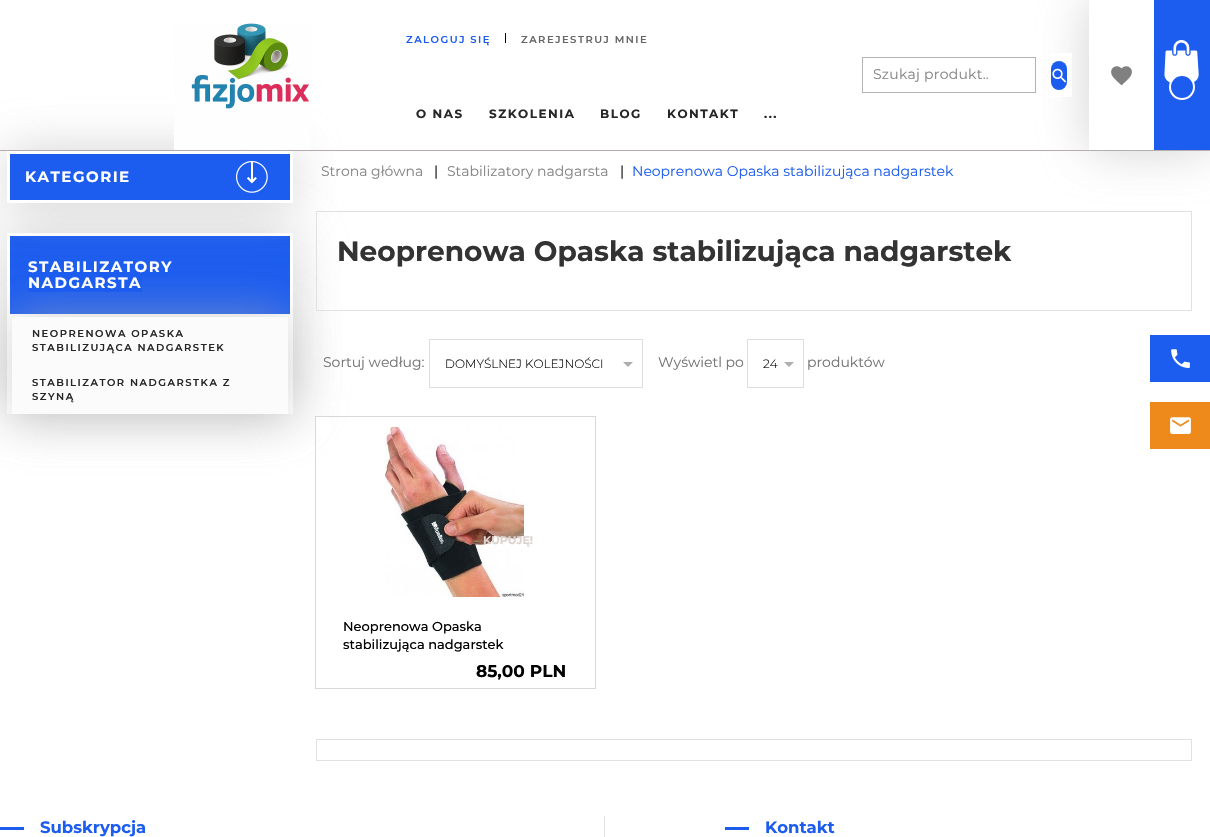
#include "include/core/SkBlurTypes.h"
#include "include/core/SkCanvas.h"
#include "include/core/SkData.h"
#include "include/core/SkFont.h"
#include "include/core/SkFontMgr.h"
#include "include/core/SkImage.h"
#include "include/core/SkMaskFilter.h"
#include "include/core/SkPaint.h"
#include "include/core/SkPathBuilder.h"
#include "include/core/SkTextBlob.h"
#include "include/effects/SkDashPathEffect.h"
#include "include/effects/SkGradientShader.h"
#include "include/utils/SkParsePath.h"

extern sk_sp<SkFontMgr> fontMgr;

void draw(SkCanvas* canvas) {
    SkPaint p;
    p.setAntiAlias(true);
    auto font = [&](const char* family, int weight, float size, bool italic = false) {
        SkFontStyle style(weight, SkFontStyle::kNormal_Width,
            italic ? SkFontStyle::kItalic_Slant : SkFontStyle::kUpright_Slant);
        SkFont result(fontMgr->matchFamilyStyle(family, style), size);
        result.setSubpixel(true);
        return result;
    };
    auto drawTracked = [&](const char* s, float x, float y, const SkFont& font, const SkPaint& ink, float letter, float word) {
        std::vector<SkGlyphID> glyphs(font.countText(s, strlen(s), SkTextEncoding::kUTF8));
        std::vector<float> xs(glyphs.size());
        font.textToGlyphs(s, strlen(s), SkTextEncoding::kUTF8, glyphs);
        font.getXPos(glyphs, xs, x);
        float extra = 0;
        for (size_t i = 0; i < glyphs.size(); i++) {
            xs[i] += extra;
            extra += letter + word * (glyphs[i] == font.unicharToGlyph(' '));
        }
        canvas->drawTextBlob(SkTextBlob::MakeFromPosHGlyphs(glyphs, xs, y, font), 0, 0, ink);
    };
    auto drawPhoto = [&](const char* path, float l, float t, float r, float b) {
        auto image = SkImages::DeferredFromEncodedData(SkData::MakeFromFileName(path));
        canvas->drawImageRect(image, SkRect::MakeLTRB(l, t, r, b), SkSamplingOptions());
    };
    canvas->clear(0xFFFFFFFF);
    canvas->save();
    canvas->clipPath(SkPathBuilder(SkPathFillType::kEvenOdd).moveTo(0, 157).lineTo(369, 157).lineTo(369, 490).lineTo(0, 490).close().moveTo(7, 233).lineTo(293, 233).lineTo(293, 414).lineTo(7, 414).close().detach(), true);
    p.setColor(0x96B5B5B5);
    p.setMaskFilter(SkMaskFilter::MakeBlur(kNormal_SkBlurStyle, 24.5f));
    canvas->drawRect(SkRect::MakeLTRB(6, 232, 294, 415), p);
    p.setMaskFilter(nullptr);
    canvas->restore();
    p.setColor(0xFF1C5CEE);
    canvas->drawRect(SkRect::MakeLTRB(10, 236, 290, 314), p);
    p.setColor(0x96B5B5B5);
    p.setMaskFilter(SkMaskFilter::MakeBlur(kNormal_SkBlurStyle, 24.5f));
    canvas->drawRect(SkRect::MakeLTRB(11, 316, 289, 415), p);
    p.setMaskFilter(nullptr);
    p.setColor(0xFF1C5CEE);
    canvas->drawRect(SkRect::MakeLTRB(28, 270, 173, 276), p);
    canvas->drawRect(SkRect::MakeLTRB(28, 276, 142, 292), p);
    p.setColor(0x96B5B5B5);
    p.setMaskFilter(SkMaskFilter::MakeBlur(kNormal_SkBlurStyle, 24.5f));
    canvas->drawRect(SkRect::MakeLTRB(6, 150, 294, 204), p);
    p.setMaskFilter(nullptr);
    p.setColor(0xFFB3ACAC);
    canvas->drawRect(SkRect::MakeLTRB(0, 150, 1210, 151), p);
    drawPhoto("media/1.png", 174, 23, 311, 150);
    auto font1 = font("Montserrat", 600, 10);
    p.setColor(0xFF1C5CEE);
    drawTracked("ZALOGUJ SIĘ", 406, 43, font1, p, 1.5f, 0);
    p.setColor(0xFF000000);
    canvas->drawRect(SkRect::MakeLTRB(505, 33, 506, 43), p);
    p.setColor(0xFF666666);
    drawTracked("ZAREJESTRUJ MNIE", 521, 43, font1, p, 1.5f, 0);
    auto font2 = font("Montserrat", 700, 12);
    p.setColor(0xFF262626);
    {
        const struct { const char* s; float x, y; } items[] = {
            {"O NAS", 416, 118},
            {"SZKOLENIA", 489, 118},
            {"BLOG", 600, 118},
            {"KONTAKT", 667, 118},
            {"...", 764, 118},
        };
        for (auto [s, x, y] : items) {
            drawTracked(s, x, y, font2, p, 1.5f, 0);
        }
    }
    p.setStyle(SkPaint::kStroke_Style);
    p.setStrokeWidth(1);
    p.setColor(0xFFE1E1E1);
    canvas->drawRect(SkRect::MakeLTRB(316.5f, 211.5f, 1191.5f, 310.5f), p);
    canvas->save();
    canvas->clipPath(SkPathBuilder(SkPathFillType::kEvenOdd).moveTo(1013, 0).lineTo(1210, 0).lineTo(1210, 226).lineTo(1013, 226).close().moveTo(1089, 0).lineTo(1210, 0).lineTo(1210, 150).lineTo(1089, 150).close().detach(), true);
    p.setStyle(SkPaint::kFill_Style);
    p.setColor(0x96B5B5B5);
    p.setMaskFilter(SkMaskFilter::MakeBlur(kNormal_SkBlurStyle, 24.5f));
    canvas->drawRect(SkRect::MakeLTRB(1088, -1, 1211, 151), p);
    p.setMaskFilter(nullptr);
    canvas->restore();
    p.setColor(0xFFFFFFFF);
    canvas->drawRect(SkRect::MakeLTRB(1050, 53, 1072, 97), p);
    p.setStyle(SkPaint::kStroke_Style);
    p.setColor(0xFFB3B3B3);
    canvas->drawRect(SkRect::MakeLTRB(862.5f, 57.5f, 1035.5f, 92.5f), p);
    auto font3 = font("Montserrat", 400, 14);
    p.setStyle(SkPaint::kFill_Style);
    p.setColor(0xFF858585);
    drawTracked("Szukaj produkt..", 873, 79, font3, p, 0.25f, 0);
    p.setColor(0xFF1C5CEE);
    canvas->drawRoundRect(SkRect::MakeLTRB(1051, 61, 1067, 90), 8, 8, p);
    drawPhoto("media/2.png", 1052, 68, 1067, 83);
    drawPhoto("media/3.png", 1111, 66, 1132, 86);
    canvas->drawRect(SkRect::MakeLTRB(1154, 0, 1210, 150), p);
    drawPhoto("media/4.png", 1164, 40, 1199, 83);
    canvas->drawCircle(1182, 87, 12, p);
    p.setStyle(SkPaint::kStroke_Style);
    p.setStrokeWidth(2);
    p.setColor(0xFFFFFFFF);
    canvas->drawCircle(1182, 87, 12, p);
    p.setStyle(SkPaint::kFill_Style);
    p.setColor(0xFF1C5CEE);
    canvas->drawRect(SkRect::MakeLTRB(8.5f, 152.5f, 291.5f, 201.5f), p);
    p.setStyle(SkPaint::kStroke_Style);
    p.setStrokeWidth(3);
    p.setColor(0xFFFFFFFF);
    canvas->drawRect(SkRect::MakeLTRB(8.5f, 152.5f, 291.5f, 201.5f), p);
    auto font4 = font("Montserrat", 700, 15);
    p.setStyle(SkPaint::kFill_Style);
    drawTracked("KATEGORIE", 25, 182, font4, p, 1.5f, 0);
    drawPhoto("media/5.png", 236, 161, 268, 193);
    drawTracked("STABILIZATORY", 28, 272, font4, p, 1.5f, 0);
    drawTracked("NADGARSTA", 28, 288, font4, p, 1.5f, 0);
    p.setColor(0xFFFBFBFB);
    canvas->drawRect(SkRect::MakeLTRB(12, 317, 288, 414), p);
    p.setColor(0xFF262626);
    {
        const struct { const char* s; float x, y; } items[] = {
            {"NEOPRENOWA OPASKA", 32, 337},
            {"STABILIZUJĄCA NADGARSTEK", 32, 351},
            {"STABILIZATOR NADGARSTKA Z", 32, 386},
            {"SZYNĄ", 32, 400},
        };
        for (auto [s, x, y] : items) {
            drawTracked(s, x, y, font1, p, 1.5f, 0);
        }
    }
    p.setColor(0xFF858585);
    canvas->drawString("Strona główna", 321, 176, font3, p);
    p.setColor(0xFF000000);
    canvas->drawString("|", 434, 176, font3, p);
    p.setColor(0xFF858585);
    canvas->drawString("Stabilizatory nadgarsta", 447, 176, font3, p);
    p.setColor(0xFF000000);
    canvas->drawString("|", 620, 176, font3, p);
    p.setColor(0xFF1C5CEE);
    canvas->drawString("Neoprenowa Opaska stabilizująca nadgarstek", 632, 176, font3, p);
    auto font5 = font("Montserrat", 700, 28);
    p.setColor(0xFF333333);
    canvas->drawString("Neoprenowa Opaska stabilizująca nadgarstek", 337, 261, font5, p);
    p.setColor(0xFF737373);
    canvas->drawString("Sortuj według:", 323, 367, font3, p);
    p.setStyle(SkPaint::kStroke_Style);
    p.setStrokeWidth(1);
    p.setColor(0xFFDEDEDE);
    canvas->drawRect(SkRect::MakeLTRB(429.5f, 339.5f, 642.5f, 387.5f), p);
    auto font6 = font("Montserrat", 300, 12);
    p.setStyle(SkPaint::kFill_Style);
    p.setColor(0xFF000000);
    canvas->drawString("DOMYŚLNEJ KOLEJNOŚCI", 445, 368, font6, p);
    p.setColor(0xFFAEAEAE);
    canvas->drawPath(SkPathBuilder().moveTo(623, 362).lineTo(633, 362).lineTo(628, 367).close().detach(), p);
    p.setColor(0xFF737373);
    canvas->drawString("Wyświetl po", 658, 367, font3, p);
    p.setStyle(SkPaint::kStroke_Style);
    p.setColor(0xFFDEDEDE);
    canvas->drawRect(SkRect::MakeLTRB(747.5f, 339.5f, 803.5f, 387.5f), p);
    p.setStyle(SkPaint::kFill_Style);
    p.setColor(0xFF000000);
    canvas->drawString("24", 763, 368, font6, p);
    p.setColor(0xFFAEAEAE);
    canvas->drawPath(SkPathBuilder().moveTo(784, 362).lineTo(794, 362).lineTo(789, 367).close().detach(), p);
    p.setColor(0xFF737373);
    canvas->drawString("produktów", 807, 367, font3, p);
    p.setColor(0xFFFFFFFF);
    canvas->drawRect(SkRect::MakeLTRB(316, 417, 329, 436), p);
    p.setStyle(SkPaint::kStroke_Style);
    p.setColor(0xFFD9D8D5);
    canvas->drawRect(SkRect::MakeLTRB(315.5f, 416.5f, 595.5f, 688.5f), p);
    drawPhoto("media/6.png", 385, 427, 524, 597);
    auto font7 = font("Montserrat", 700, 11);
    p.setStyle(SkPaint::kFill_Style);
    p.setColor(0xFFDED2CE);
    canvas->drawString("KUPUJĘ!", 483, 544, font7, p);
    auto font8 = font("Montserrat", 500, 13);
    p.setColor(0xFF000000);
    canvas->drawString("Neoprenowa Opaska", 343, 631, font8, p);
    canvas->drawString("stabilizująca nadgarstek", 343, 649, font8, p);
    auto font9 = font("Montserrat", 700, 17);
    canvas->drawString("85,00 PLN", 476, 677, font9, p);
    p.setStyle(SkPaint::kStroke_Style);
    p.setColor(0xFFE1E1E1);
    canvas->drawRect(SkRect::MakeLTRB(316.5f, 739.5f, 1191.5f, 760.5f), p);
    p.setStyle(SkPaint::kFill_Style);
    p.setColor(0xFF1C5CEE);
    canvas->drawRect(SkRect::MakeLTRB(1150, 335, 1210, 382), p);
    drawPhoto("media/7.png", 1171, 349, 1190, 368);
    p.setColor(0xFFEE8A1C);
    canvas->drawRect(SkRect::MakeLTRB(1150, 402, 1210, 449), p);
    drawPhoto("media/8.png", 1170, 417, 1191, 434);
    p.setColor(0xFFE0E0E0);
    canvas->drawRect(SkRect::MakeLTRB(604, 816, 605, 837), p);
    p.setColor(0xFF1C5CEE);
    canvas->drawRect(SkRect::MakeLTRB(0, 827, 24, 830), p);
    auto font10 = font("Montserrat", 700, 16.5f);
    canvas->drawString("Subskrypcja", 40, 833, font10, p);
    canvas->drawRect(SkRect::MakeLTRB(725, 827, 749, 830), p);
    canvas->drawString("Kontakt", 765, 833, font10, p);
}
